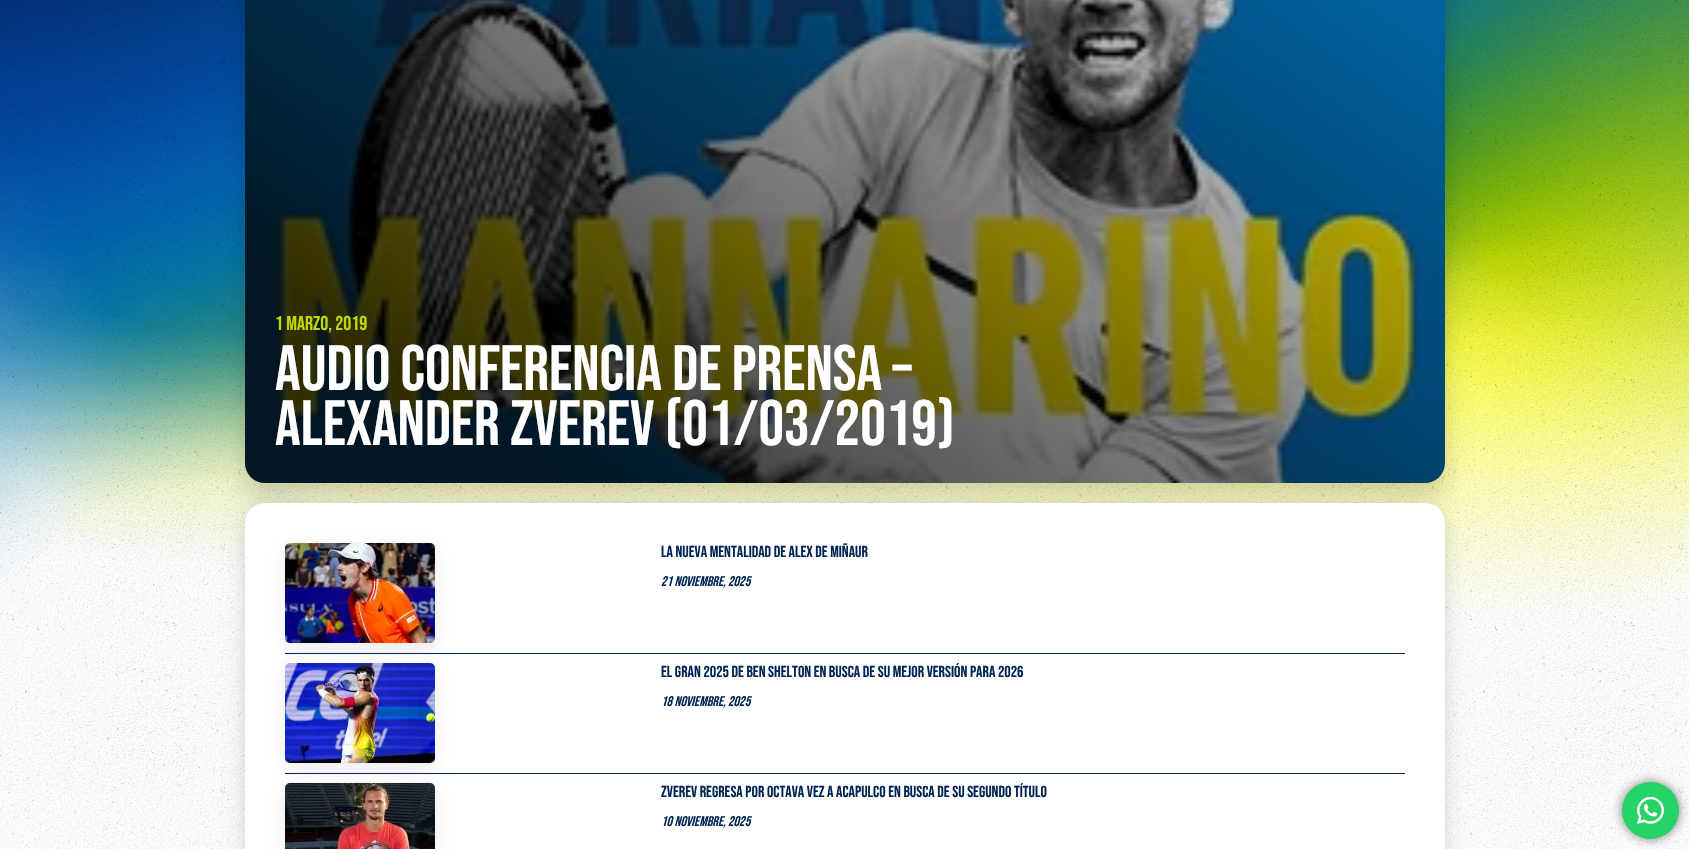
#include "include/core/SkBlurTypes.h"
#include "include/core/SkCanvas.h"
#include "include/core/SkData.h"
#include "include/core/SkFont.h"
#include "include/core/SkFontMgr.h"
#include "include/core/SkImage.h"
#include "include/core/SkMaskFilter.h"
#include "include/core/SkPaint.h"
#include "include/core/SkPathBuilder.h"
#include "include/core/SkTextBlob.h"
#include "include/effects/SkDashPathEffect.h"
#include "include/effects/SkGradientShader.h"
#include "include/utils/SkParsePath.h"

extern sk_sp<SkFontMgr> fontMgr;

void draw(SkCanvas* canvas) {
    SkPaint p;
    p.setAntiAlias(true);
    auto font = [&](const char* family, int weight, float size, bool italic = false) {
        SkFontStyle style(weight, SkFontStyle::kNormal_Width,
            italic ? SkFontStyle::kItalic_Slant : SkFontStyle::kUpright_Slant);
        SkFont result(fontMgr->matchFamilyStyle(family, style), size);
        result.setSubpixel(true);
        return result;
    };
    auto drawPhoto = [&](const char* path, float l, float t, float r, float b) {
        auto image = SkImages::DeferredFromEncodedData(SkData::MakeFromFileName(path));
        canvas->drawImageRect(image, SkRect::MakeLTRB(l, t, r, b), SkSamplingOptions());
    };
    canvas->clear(0xFFFFFFFF);
    drawPhoto("media/1.png", 0, 0, 1689, 616);
    drawPhoto("media/2.png", 0, 0, 1689, 849);
    p.setColor(0x29000000);
    p.setMaskFilter(SkMaskFilter::MakeBlur(kNormal_SkBlurStyle, 12.5f));
    canvas->drawRoundRect(SkRect::MakeLTRB(245, -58, 1445, 497), 20, 20, p);
    p.setMaskFilter(nullptr);
    drawPhoto("media/3.png", 245, 0, 1445, 483);
    {
        const SkColor colors[] = {0x00000000, 0xCC000000};
        const float stops[] = {0, 0.85f};
        const SkPoint ends[] = {{1201, -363}, {489, 654}};
        p.setShader(SkGradientShader::MakeLinear(ends, colors, stops, 2, SkTileMode::kClamp));
        p.setAlpha(255);
    }
    canvas->drawRoundRect(SkRect::MakeLTRB(245, -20, 1445, 483), 20, 20, p);
    auto font1 = font("Bebas Neue", 400, 20);
    p.setShader(nullptr);
    p.setColor(0xFFC0D904);
    canvas->drawString("1 Marzo, 2019", 275, 330, font1, p);
    auto font2 = font("Bebas Neue", 400, 64);
    p.setColor(0xFFFFFFFF);
    canvas->drawString("AUDIO CONFERENCIA DE PRENSA –", 275, 390, font2, p);
    canvas->drawString("ALEXANDER ZVEREV (01/03/2019)", 275, 445, font2, p);
    p.setColor(0x29000000);
    p.setMaskFilter(SkMaskFilter::MakeBlur(kNormal_SkBlurStyle, 10));
    canvas->drawRoundRect(SkRect::MakeLTRB(245, 509, 1445, 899), 20, 20, p);
    p.setMaskFilter(nullptr);
    p.setColor(0xFFFFFFFF);
    canvas->drawRoundRect(SkRect::MakeLTRB(245, 503, 1445, 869), 20, 20, p);
    p.setColor(0x14000000);
    p.setMaskFilter(SkMaskFilter::MakeBlur(kNormal_SkBlurStyle, 7.5f));
    canvas->drawRoundRect(SkRect::MakeLTRB(285, 548, 435, 648), 5, 5, p);
    p.setMaskFilter(nullptr);
    drawPhoto("media/4.png", 285, 543, 435, 643);
    auto font3 = font("Bebas Neue", 400, 16);
    p.setColor(0xFF002554);
    canvas->drawString("La nueva mentalidad de Alex de Miñaur", 661, 557, font3, p);
    auto font4 = font("Bebas Neue", 400, 14, true);
    canvas->drawString("21 noviembre, 2025", 661, 586, font4, p);
    canvas->drawRect(SkRect::MakeLTRB(285, 653, 1405, 654), p);
    p.setColor(0x14000000);
    p.setMaskFilter(SkMaskFilter::MakeBlur(kNormal_SkBlurStyle, 7.5f));
    canvas->drawRoundRect(SkRect::MakeLTRB(285, 668, 435, 768), 5, 5, p);
    p.setMaskFilter(nullptr);
    drawPhoto("media/5.png", 285, 663, 435, 763);
    p.setColor(0xFF002554);
    canvas->drawString("El gran 2025 de Ben Shelton en busca de su mejor versión para 2026", 661, 677, font3, p);
    canvas->drawString("18 noviembre, 2025", 661, 706, font4, p);
    canvas->drawRect(SkRect::MakeLTRB(285, 773, 1405, 774), p);
    p.setColor(0x14000000);
    p.setMaskFilter(SkMaskFilter::MakeBlur(kNormal_SkBlurStyle, 7.5f));
    canvas->drawRoundRect(SkRect::MakeLTRB(285, 788, 435, 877), 5, 5, p);
    p.setMaskFilter(nullptr);
    drawPhoto("media/6.png", 285, 783, 435, 849);
    p.setColor(0xFF002554);
    canvas->drawString("Zverev regresa por octava vez a Acapulco en busca de su segundo título", 661, 797, font3, p);
    canvas->drawString("10 noviembre, 2025", 661, 826, font4, p);
    p.setColor(0x80000000);
    p.setMaskFilter(SkMaskFilter::MakeBlur(kNormal_SkBlurStyle, 5.5f));
    canvas->drawRoundRect(SkRect::MakeLTRB(1622, 782, 1679, 839), 28.5f, 28.5f, p);
    p.setMaskFilter(nullptr);
    p.setColor(0xFF25D366);
    canvas->drawCircle(1650.5f, 810.5f, 28.5f, p);
    drawPhoto("media/7.png", 1637, 797, 1664, 824);
}
